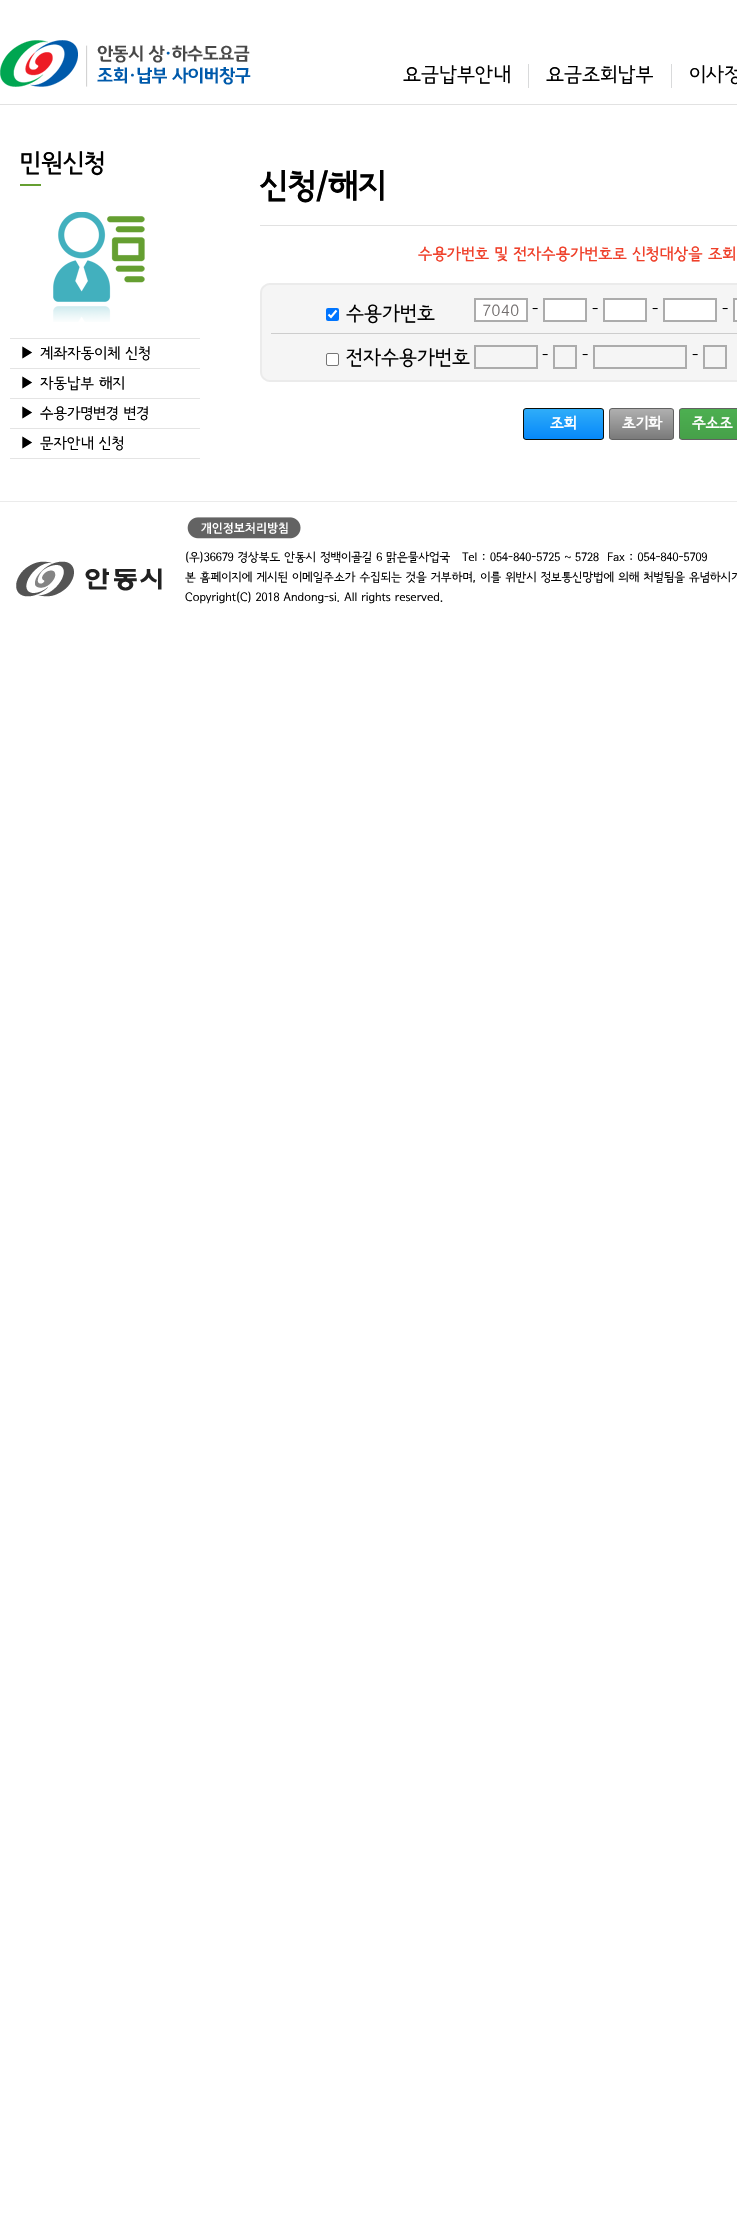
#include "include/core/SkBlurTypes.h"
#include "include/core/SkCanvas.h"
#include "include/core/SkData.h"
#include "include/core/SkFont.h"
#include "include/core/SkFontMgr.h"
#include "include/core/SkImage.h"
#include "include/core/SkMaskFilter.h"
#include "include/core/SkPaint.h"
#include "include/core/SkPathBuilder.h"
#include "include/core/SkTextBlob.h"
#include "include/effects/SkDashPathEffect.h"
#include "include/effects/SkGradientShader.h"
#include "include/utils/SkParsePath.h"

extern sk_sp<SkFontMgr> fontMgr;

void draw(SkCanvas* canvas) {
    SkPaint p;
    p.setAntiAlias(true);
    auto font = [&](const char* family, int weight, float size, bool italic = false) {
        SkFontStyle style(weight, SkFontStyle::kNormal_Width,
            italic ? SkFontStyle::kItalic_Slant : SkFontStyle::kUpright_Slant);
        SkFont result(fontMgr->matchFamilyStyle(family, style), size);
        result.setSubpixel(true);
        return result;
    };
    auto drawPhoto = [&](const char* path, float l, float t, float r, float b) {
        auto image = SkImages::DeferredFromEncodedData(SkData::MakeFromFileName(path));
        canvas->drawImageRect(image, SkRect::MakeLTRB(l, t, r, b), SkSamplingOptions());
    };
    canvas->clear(0xFFFFFFFF);
    p.setColor(0xFFE2E2E2);
    canvas->drawRect(SkRect::MakeLTRB(0, 104, 737, 105), p);
    drawPhoto("media/1.png", 0, 40, 251, 87);
    auto font1 = font("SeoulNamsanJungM", 400, 20);
    p.setColor(0xFF000000);
    canvas->drawString("요금납부안내", 403, 81, font1, p);
    p.setColor(0xFFD9DADB);
    canvas->drawRect(SkRect::MakeLTRB(528, 64, 529, 88), p);
    p.setColor(0xFF000000);
    canvas->drawString("요금조회납부", 546, 81, font1, p);
    p.setColor(0xFFD9DADB);
    canvas->drawRect(SkRect::MakeLTRB(671, 64, 672, 88), p);
    p.setColor(0xFF000000);
    canvas->drawString("이사정", 689, 81, font1, p);
    auto font2 = font("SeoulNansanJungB", 400, 25);
    canvas->drawString("민원신청", 20, 171, font2, p);
    drawPhoto("media/2.png", 20, 184, 145, 322);
    p.setColor(0xFFE4E4E4);
    canvas->drawRect(SkRect::MakeLTRB(10, 338, 200, 339), p);
    canvas->drawRect(SkRect::MakeLTRB(10, 368, 200, 369), p);
    auto font3 = font("WenQuanYi Zen Hei", 500, 15);
    p.setColor(0xFF000000);
    canvas->drawString("▶", 20, 358, font3, p);
    auto font4 = font("SeoulNamsanJungM", 400, 15);
    canvas->drawString("계좌자동이체 신청", 40, 358, font4, p);
    p.setColor(0xFFE4E4E4);
    canvas->drawRect(SkRect::MakeLTRB(10, 398, 200, 399), p);
    p.setColor(0xFF000000);
    canvas->drawString("▶", 20, 388, font3, p);
    canvas->drawString("자동납부 해지", 40, 388, font4, p);
    p.setColor(0xFFE4E4E4);
    canvas->drawRect(SkRect::MakeLTRB(10, 428, 200, 429), p);
    p.setColor(0xFF000000);
    canvas->drawString("▶", 20, 418, font3, p);
    canvas->drawString("수용가명변경 변경", 40, 418, font4, p);
    p.setColor(0xFFE4E4E4);
    canvas->drawRect(SkRect::MakeLTRB(10, 458, 200, 459), p);
    p.setColor(0xFF000000);
    canvas->drawString("▶", 20, 448, font3, p);
    canvas->drawString("문자안내 신청", 40, 448, font4, p);
    auto font5 = font("SeoulNamsanJungM", 700, 33);
    canvas->drawString("신청/해지", 260, 197, font5, p);
    p.setColor(0xFFE1E1E1);
    canvas->drawRect(SkRect::MakeLTRB(260, 225, 737, 226), p);
    auto font6 = font("SeoulNansanJungB", 400, 16);
    p.setColor(0xFFEF402A);
    canvas->drawString("수용가번호 및 전자수용가번호로 신청대상을 조회", 418, 259, font6, p);
    drawPhoto("media/3.png", 260, 283, 737, 382);
    p.setColor(0xFF0075FF);
    canvas->drawRoundRect(SkRect::MakeLTRB(326, 308, 339, 321), 2, 2, p);
    p.setStyle(SkPaint::kStroke_Style);
    p.setStrokeWidth(2.1f);
    p.setColor(0xFFFFFFFF);
    canvas->drawPath(SkPathBuilder().moveTo(328.5f, 314.5f).lineTo(331, 317).lineTo(336.5f, 310.5f).detach(), p);
    p.setStyle(SkPaint::kFill_Style);
    p.setColor(0xFF000000);
    canvas->drawString("수용가번호", 346, 320, font1, p);
    p.setColor(0xFFFFFFFF);
    canvas->drawRect(SkRect::MakeLTRB(475, 299, 527, 321), p);
    p.setStyle(SkPaint::kStroke_Style);
    p.setStrokeWidth(2);
    p.setColor(0xFFACACAC);
    canvas->drawRect(SkRect::MakeLTRB(475, 299, 527, 321), p);
    auto font7 = font("Dotum", 400, 16);
    p.setStyle(SkPaint::kFill_Style);
    p.setColor(0xFF726E6E);
    canvas->drawString("7040", 482, 316, font7, p);
    p.setColor(0xFF000000);
    canvas->drawString("-", 532, 314, font4, p);
    p.setColor(0xFFFFFFFF);
    canvas->drawRect(SkRect::MakeLTRB(544, 299, 586, 321), p);
    p.setStyle(SkPaint::kStroke_Style);
    p.setColor(0xFFACACAC);
    canvas->drawRect(SkRect::MakeLTRB(544, 299, 586, 321), p);
    p.setStyle(SkPaint::kFill_Style);
    p.setColor(0xFF000000);
    canvas->drawString("-", 592, 314, font4, p);
    p.setColor(0xFFFFFFFF);
    canvas->drawRect(SkRect::MakeLTRB(604, 299, 646, 321), p);
    p.setStyle(SkPaint::kStroke_Style);
    p.setColor(0xFFACACAC);
    canvas->drawRect(SkRect::MakeLTRB(604, 299, 646, 321), p);
    p.setStyle(SkPaint::kFill_Style);
    p.setColor(0xFF000000);
    canvas->drawString("-", 652, 314, font4, p);
    p.setColor(0xFFFFFFFF);
    canvas->drawRect(SkRect::MakeLTRB(664, 299, 716, 321), p);
    p.setStyle(SkPaint::kStroke_Style);
    p.setColor(0xFFACACAC);
    canvas->drawRect(SkRect::MakeLTRB(664, 299, 716, 321), p);
    p.setStyle(SkPaint::kFill_Style);
    p.setColor(0xFF000000);
    canvas->drawString("-", 722, 314, font4, p);
    p.setColor(0xFFFFFFFF);
    canvas->drawRect(SkRect::MakeLTRB(734, 299, 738, 321), p);
    p.setStyle(SkPaint::kStroke_Style);
    p.setColor(0xFFACACAC);
    canvas->drawRect(SkRect::MakeLTRB(734, 299, 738, 321), p);
    p.setStyle(SkPaint::kFill_Style);
    p.setColor(0xFFFFFFFF);
    canvas->drawRoundRect(SkRect::MakeLTRB(326.5f, 353.5f, 338.5f, 365.5f), 1.5f, 1.5f, p);
    p.setStyle(SkPaint::kStroke_Style);
    p.setStrokeWidth(1);
    p.setColor(0xFF767676);
    canvas->drawRoundRect(SkRect::MakeLTRB(326.5f, 353.5f, 338.5f, 365.5f), 1.5f, 1.5f, p);
    p.setStyle(SkPaint::kFill_Style);
    p.setColor(0xFF000000);
    canvas->drawString("전자수용가번호", 346, 364, font1, p);
    p.setStyle(SkPaint::kStroke_Style);
    p.setStrokeWidth(2);
    p.setColor(0xFFACACAC);
    canvas->drawRect(SkRect::MakeLTRB(475, 346, 537, 368), p);
    p.setStyle(SkPaint::kFill_Style);
    p.setColor(0xFF000000);
    canvas->drawString("-", 542, 360, font4, p);
    p.setStyle(SkPaint::kStroke_Style);
    p.setColor(0xFFACACAC);
    canvas->drawRect(SkRect::MakeLTRB(554, 346, 576, 368), p);
    p.setStyle(SkPaint::kFill_Style);
    p.setColor(0xFF000000);
    canvas->drawString("-", 582, 360, font4, p);
    p.setStyle(SkPaint::kStroke_Style);
    p.setColor(0xFFACACAC);
    canvas->drawRect(SkRect::MakeLTRB(594, 346, 686, 368), p);
    p.setStyle(SkPaint::kFill_Style);
    p.setColor(0xFF000000);
    canvas->drawString("-", 692, 360, font4, p);
    p.setStyle(SkPaint::kStroke_Style);
    p.setColor(0xFFACACAC);
    canvas->drawRect(SkRect::MakeLTRB(704, 346, 726, 368), p);
    canvas->save();
    canvas->clipPath(SkPathBuilder().moveTo(526, 408).lineTo(601, 408).cubicTo(602.5f, 408, 604, 409.5f, 604, 411).lineTo(604, 437).cubicTo(604, 438.5f, 602.5f, 440, 601, 440).lineTo(526, 440).cubicTo(524.5f, 440, 523, 438.5f, 523, 437).lineTo(523, 411).cubicTo(523, 409.5f, 524.5f, 408, 526, 408).close().detach(), true);
    p.setStyle(SkPaint::kFill_Style);
    {
        const SkColor colors[] = {0xFF2DABF9, 0xFF0688FA};
        const float stops[] = {0.05f, 1};
        const SkPoint ends[] = {{564, 409}, {564, 439}};
        p.setShader(SkGradientShader::MakeLinear(ends, colors, stops, 2, SkTileMode::kClamp));
        p.setAlpha(255);
    }
    canvas->drawRect(SkRect::MakeLTRB(523, 409, 604, 439), p);
    canvas->restore();
    p.setStyle(SkPaint::kStroke_Style);
    p.setStrokeWidth(1);
    p.setShader(nullptr);
    p.setColor(0xFF0B0E07);
    canvas->drawRoundRect(SkRect::MakeLTRB(523.5f, 408.5f, 603.5f, 439.5f), 2.5f, 2.5f, p);
    auto font8 = font("SeoulNamsanJungM", 700, 15);
    p.setStyle(SkPaint::kFill_Style);
    p.setColor(0xFFFFFFFF);
    canvas->drawString("조회", 550, 428, font8, p);
    canvas->save();
    canvas->clipPath(SkPathBuilder().moveTo(612, 408).lineTo(671, 408).cubicTo(672.5f, 408, 674, 409.5f, 674, 411).lineTo(674, 437).cubicTo(674, 438.5f, 672.5f, 440, 671, 440).lineTo(612, 440).cubicTo(610.5f, 440, 609, 438.5f, 609, 437).lineTo(609, 411).cubicTo(609, 409.5f, 610.5f, 408, 612, 408).close().detach(), true);
    {
        const SkColor colors[] = {0xFFADADAD, 0xFF7A7A7A};
        const float stops[] = {0.05f, 1};
        const SkPoint ends[] = {{642, 409}, {642, 439}};
        p.setShader(SkGradientShader::MakeLinear(ends, colors, stops, 2, SkTileMode::kClamp));
        p.setAlpha(255);
    }
    canvas->drawRect(SkRect::MakeLTRB(609, 409, 674, 439), p);
    canvas->restore();
    p.setStyle(SkPaint::kStroke_Style);
    p.setShader(nullptr);
    p.setColor(0xFF616161);
    canvas->drawRoundRect(SkRect::MakeLTRB(609.5f, 408.5f, 673.5f, 439.5f), 2.5f, 2.5f, p);
    p.setStyle(SkPaint::kFill_Style);
    p.setColor(0xFFFFFFFF);
    canvas->drawString("초기화", 622, 428, font8, p);
    canvas->save();
    canvas->clipPath(SkPathBuilder().moveTo(682, 408).lineTo(754, 408).cubicTo(755.5f, 408, 757, 409.5f, 757, 411).lineTo(757, 437).cubicTo(757, 438.5f, 755.5f, 440, 754, 440).lineTo(682, 440).cubicTo(680.5f, 440, 679, 438.5f, 679, 437).lineTo(679, 411).cubicTo(679, 409.5f, 680.5f, 408, 682, 408).close().detach(), true);
    {
        const SkColor colors[] = {0xFF4CAF50, 0xFF46A049};
        const float stops[] = {0.05f, 1};
        const SkPoint ends[] = {{718, 409}, {718, 439}};
        p.setShader(SkGradientShader::MakeLinear(ends, colors, stops, 2, SkTileMode::kClamp));
        p.setAlpha(255);
    }
    canvas->drawRect(SkRect::MakeLTRB(679, 409, 737, 439), p);
    canvas->restore();
    p.setStyle(SkPaint::kStroke_Style);
    p.setShader(nullptr);
    p.setColor(0xFF616161);
    canvas->drawRoundRect(SkRect::MakeLTRB(679.5f, 408.5f, 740.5f, 439.5f), 2.5f, 2.5f, p);
    p.setStyle(SkPaint::kFill_Style);
    p.setColor(0xFFFFFFFF);
    canvas->drawString("주소조", 692, 428, font8, p);
    p.setColor(0xFFEBEBEB);
    canvas->drawRect(SkRect::MakeLTRB(0, 501, 737, 502), p);
    drawPhoto("media/4.png", 187, 517, 301, 539);
    auto font9 = font("SeoulNamsanJungM", 400, 12);
    p.setColor(0xFF000000);
    canvas->drawString("(우)36679 경상북도 안동시 정백이골길 6 맑은물사업국   Tel : 054-840-5725 ~ 5728  Fax : 054-840-5709", 185, 561, font9, p);
    drawPhoto("media/5.png", 16, 561, 162, 597);
    canvas->drawString("본 홈페이지에 게시된 이메일주소가 수집되는 것을 거부하며, 이를 위반시 정보통신망법에 의해 처벌됨을 유념하시기", 185, 581, font9, p);
    canvas->drawString("Copyright(C) 2018 Andong-si. All rights reserved.", 185, 601, font9, p);
}
